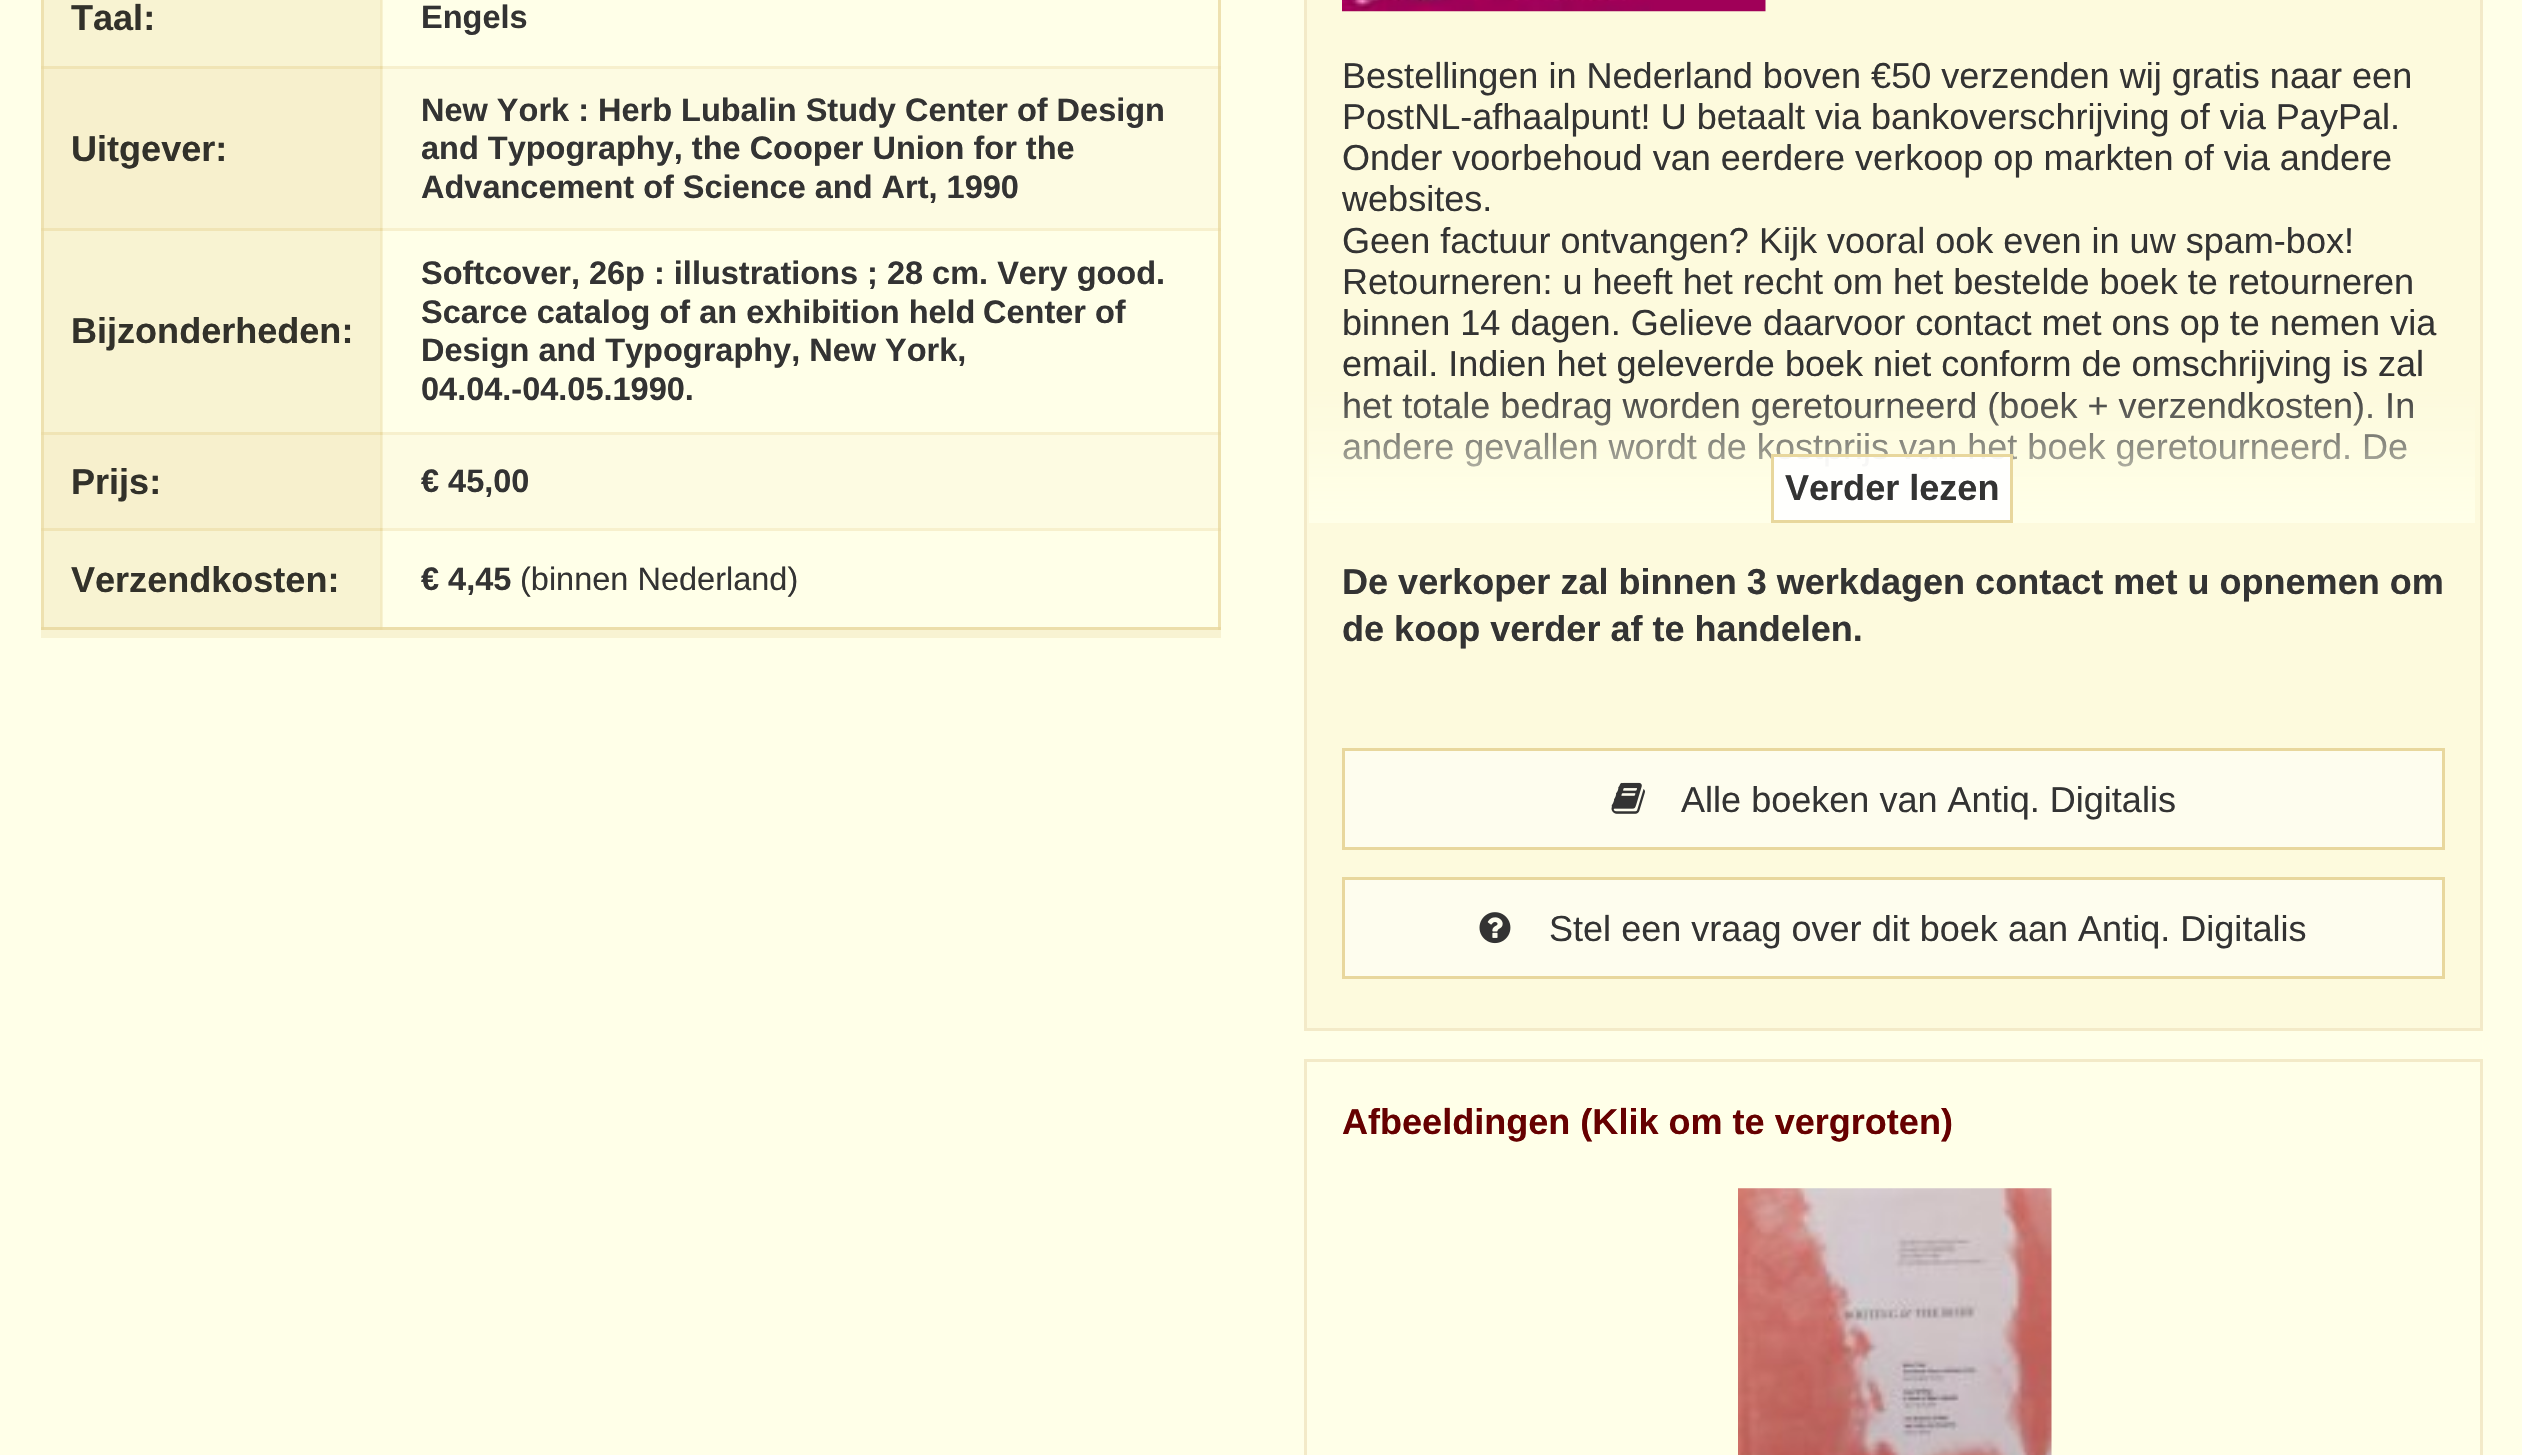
#include "include/core/SkBlurTypes.h"
#include "include/core/SkCanvas.h"
#include "include/core/SkData.h"
#include "include/core/SkFont.h"
#include "include/core/SkFontMgr.h"
#include "include/core/SkImage.h"
#include "include/core/SkMaskFilter.h"
#include "include/core/SkPaint.h"
#include "include/core/SkPathBuilder.h"
#include "include/core/SkTextBlob.h"
#include "include/effects/SkDashPathEffect.h"
#include "include/effects/SkGradientShader.h"
#include "include/utils/SkParsePath.h"

extern sk_sp<SkFontMgr> fontMgr;

void draw(SkCanvas* canvas) {
    SkPaint p;
    p.setAntiAlias(true);
    auto font = [&](const char* family, int weight, float size, bool italic = false) {
        SkFontStyle style(weight, SkFontStyle::kNormal_Width,
            italic ? SkFontStyle::kItalic_Slant : SkFontStyle::kUpright_Slant);
        SkFont result(fontMgr->matchFamilyStyle(family, style), size);
        result.setSubpixel(true);
        return result;
    };
    auto drawPhoto = [&](const char* path, float l, float t, float r, float b) {
        auto image = SkImages::DeferredFromEncodedData(SkData::MakeFromFileName(path));
        canvas->drawImageRect(image, SkRect::MakeLTRB(l, t, r, b), SkSamplingOptions());
    };
    canvas->clear(0xFFFFFFE8);
    {
        const struct { float l, t, r, b; SkColor color; } items[] = {
            {382, 0, 383, 69, 0xFFF8F3D1},
            {382, 228, 383, 435, 0xFFF8F3D1},
            {382, 528, 383, 630, 0xFFF8F3D1},
            {41, 0, 44, 630, 0xFFEEE1B0},
            {41, 66, 44, 69, 0xFFEBDCA7},
            {41, 228, 44, 231, 0xFFEBDCA7},
            {41, 432, 44, 435, 0xFFEBDCA7},
            {41, 528, 44, 531, 0xFFEBDCA7},
            {41, 627, 382, 630, 0xFFEBDCA7},
            {380, 627, 1221, 630, 0xFFECDEAA},
            {380, 627, 383, 630, 0xFFEBDCA6},
            {380, 627, 382, 630, 0xFFEADAA2},
            {41, 627, 44, 630, 0xFFE9D9A0},
            {1218, 0, 1221, 630, 0xFFEEE1B0},
            {1218, 627, 1221, 630, 0xFFE9D9A1},
        };
        for (auto [l, t, r, b, color] : items) {
            p.setColor(color);
            canvas->drawRect(SkRect::MakeLTRB(l, t, r, b), p);
        }
    }
    p.setColor(0xFFF8F3D2);
    canvas->drawPath(SkPathBuilder().moveTo(41, -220).lineTo(41, 638).lineTo(1221, 638).lineTo(1221, 630).lineTo(41, 630).close().detach(), p);
    canvas->drawRect(SkRect::MakeLTRB(44, 0, 380, 66), p);
    p.setColor(0xFFF3EBC2);
    canvas->drawRect(SkRect::MakeLTRB(380, 0, 382, 66), p);
    auto font1 = font("Liberation Sans", 700, 36.05f);
    p.setColor(0xFF32312A);
    canvas->drawString("Taal:", 71, 30, font1, p);
    auto font2 = font("Liberation Sans", 700, 32.5f);
    p.setColor(0xFF333333);
    canvas->drawString("Engels", 421, 28, font2, p);
    {
        const struct { float l, t, r, b; SkColor color; } items[] = {
            {383, 69, 1218, 228, 0xFFFDFBE2},
            {380, 66, 1221, 69, 0xFFF7F0CD},
            {382, 66, 383, 231, 0xFFF7F0CD},
            {380, 66, 383, 69, 0xFFEFE4B5},
            {380, 228, 1221, 231, 0xFFF7F0CD},
            {380, 228, 383, 231, 0xFFEFE4B5},
            {1218, 66, 1221, 231, 0xFFEDE0AE},
            {1218, 66, 1221, 69, 0xFFEBDDA9},
            {1218, 228, 1221, 231, 0xFFEBDDA9},
            {44, 69, 380, 228, 0xFFF7F0CD},
            {44, 66, 382, 69, 0xFFF0E4B5},
            {44, 228, 382, 231, 0xFFF0E4B5},
            {380, 66, 382, 231, 0xFFF2E9BF},
            {380, 66, 382, 69, 0xFFEBDCA6},
            {380, 228, 382, 231, 0xFFEBDCA6},
        };
        for (auto [l, t, r, b, color] : items) {
            p.setColor(color);
            canvas->drawRect(SkRect::MakeLTRB(l, t, r, b), p);
        }
    }
    p.setColor(0xFF32312A);
    canvas->drawString("Uitgever:", 71, 161, font1, p);
    p.setColor(0xFF333333);
    {
        const struct { const char* s; float x, y; } items[] = {
            {"New York : Herb Lubalin Study Center of Design", 421, 121},
            {"and Typography, the Cooper Union for the", 421, 159},
            {"Advancement of Science and Art, 1990", 421, 198},
        };
        for (auto [s, x, y] : items) {
            canvas->drawString(s, x, y, font2, p);
        }
    }
    p.setColor(0xFFF8F3D2);
    canvas->drawRect(SkRect::MakeLTRB(44, 231, 380, 432), p);
    p.setColor(0xFFF3EBC2);
    canvas->drawRect(SkRect::MakeLTRB(380, 231, 382, 432), p);
    p.setColor(0xFF32312A);
    canvas->drawString("Bijzonderheden:", 71, 343, font1, p);
    p.setColor(0xFF333333);
    {
        const struct { const char* s; float x, y; } items[] = {
            {"Softcover, 26p : illustrations ; 28 cm. Very good.", 421, 284},
            {"Scarce catalog of an exhibition held", 421, 323},
            {"Center of", 983, 323},
            {"Design and Typography, New York,", 421, 361},
            {"04.04.-04.05.1990.", 421, 400},
        };
        for (auto [s, x, y] : items) {
            canvas->drawString(s, x, y, font2, p);
        }
    }
    {
        const struct { float l, t, r, b; SkColor color; } items[] = {
            {383, 435, 1218, 528, 0xFFFDFBE2},
            {380, 432, 1221, 435, 0xFFF7F0CD},
            {382, 432, 383, 531, 0xFFF7F0CD},
            {380, 432, 383, 435, 0xFFEFE4B5},
            {380, 528, 1221, 531, 0xFFF7F0CD},
            {380, 528, 383, 531, 0xFFEFE4B5},
            {1218, 432, 1221, 531, 0xFFEDE0AE},
            {1218, 432, 1221, 435, 0xFFEBDDA9},
            {1218, 528, 1221, 531, 0xFFEBDDA9},
            {44, 435, 380, 528, 0xFFF7F0CD},
            {44, 432, 382, 435, 0xFFF0E4B5},
            {44, 528, 382, 531, 0xFFF0E4B5},
            {380, 432, 382, 531, 0xFFF2E9BF},
            {380, 432, 382, 435, 0xFFEBDCA6},
            {380, 528, 382, 531, 0xFFEBDCA6},
        };
        for (auto [l, t, r, b, color] : items) {
            p.setColor(color);
            canvas->drawRect(SkRect::MakeLTRB(l, t, r, b), p);
        }
    }
    p.setColor(0xFF32312A);
    canvas->drawString("Prijs:", 71, 494, font1, p);
    p.setColor(0xFF333333);
    canvas->drawString("€ 45,00", 421, 492, font2, p);
    p.setColor(0xFFF8F3D2);
    canvas->drawRect(SkRect::MakeLTRB(44, 531, 380, 627), p);
    p.setColor(0xFFF3EBC2);
    canvas->drawRect(SkRect::MakeLTRB(380, 531, 382, 627), p);
    p.setColor(0xFF32312A);
    canvas->drawString("Verzendkosten:", 71, 592, font1, p);
    p.setColor(0xFF333333);
    canvas->drawString("€ 4,45", 421, 590, font2, p);
    auto font3 = font("Liberation Sans", 400, 32.5f);
    canvas->drawString("(binnen Nederland)", 520, 590, font3, p);
    p.setColor(0xFFFDFADD);
    canvas->drawRect(SkRect::MakeLTRB(1305.5f, -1.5f, 2481.5f, 1029.5f), p);
    p.setStyle(SkPaint::kStroke_Style);
    p.setStrokeWidth(3);
    p.setColor(0xFFF3EAC8);
    canvas->drawRect(SkRect::MakeLTRB(1305.5f, -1.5f, 2481.5f, 1029.5f), p);
    drawPhoto("media/1.png", 1342, 0, 1766, 12);
    auto font4 = font("Liberation Sans", 400, 36.05f);
    p.setStyle(SkPaint::kFill_Style);
    p.setColor(0xFF333333);
    {
        const struct { const char* s; float x, y; } items[] = {
            {"Bestellingen in Nederland boven €50 verzenden wij gratis naar een", 1342, 88},
            {"PostNL-afhaalpunt! U betaalt via bankoverschrijving of via PayPal.", 1342, 129},
            {"Onder voorbehoud van eerdere verkoop op markten of via andere", 1342, 170},
            {"websites.", 1342, 211},
            {"Geen factuur ontvangen? Kijk vooral ook even in uw spam-box!", 1342, 253},
            {"Retourneren: u heeft het recht om het bestelde boek te retourneren", 1342, 294},
            {"binnen 14 dagen. Gelieve daarvoor contact met ons op te nemen via", 1342, 335},
            {"email. Indien het geleverde boek niet conform de omschrijving is zal", 1342, 376},
            {"het totale bedrag worden geretourneerd (boek + verzendkosten). In", 1342, 418},
            {"andere gevallen wordt de kostprijs van het boek geretourneerd. De", 1342, 459},
        };
        for (auto [s, x, y] : items) {
            canvas->drawString(s, x, y, font4, p);
        }
    }
    {
        const SkColor colors[] = {0x00FFFFE8, 0xFFFFFFE8};
        const float stops[] = {0, 1};
        const SkPoint ends[] = {{1892, 385}, {1892, 523}};
        p.setShader(SkGradientShader::MakeLinear(ends, colors, stops, 2, SkTileMode::kClamp));
        p.setAlpha(255);
    }
    canvas->drawRect(SkRect::MakeLTRB(1309, 392, 2475, 523), p);
    p.setShader(nullptr);
    p.setColor(0xE6FFFFFF);
    canvas->drawRect(SkRect::MakeLTRB(1772.5f, 455.5f, 2011.5f, 521.5f), p);
    p.setStyle(SkPaint::kStroke_Style);
    p.setColor(0xFFE8D79D);
    canvas->drawRect(SkRect::MakeLTRB(1772.5f, 455.5f, 2011.5f, 521.5f), p);
    p.setStyle(SkPaint::kFill_Style);
    p.setColor(0xFF333333);
    {
        const struct { const char* s; float x, y; } items[] = {
            {"Verder lezen", 1785, 500},
            {"De verkoper zal binnen 3 werkdagen contact met u opnemen om", 1342, 594},
            {"de koop verder af te handelen.", 1342, 641},
        };
        for (auto [s, x, y] : items) {
            canvas->drawString(s, x, y, font1, p);
        }
    }
    p.setColor(0xFFFEFDEE);
    canvas->drawRect(SkRect::MakeLTRB(1343.5f, 749.5f, 2443.5f, 848.5f), p);
    p.setStyle(SkPaint::kStroke_Style);
    p.setColor(0xFFE8D79D);
    canvas->drawRect(SkRect::MakeLTRB(1343.5f, 749.5f, 2443.5f, 848.5f), p);
    drawPhoto("media/2.png", 1611, 782, 1645, 814);
    p.setStyle(SkPaint::kFill_Style);
    p.setColor(0xFF333333);
    canvas->drawString("Alle boeken van Antiq. Digitalis", 1681, 812, font4, p);
    p.setColor(0xFFFEFDEE);
    canvas->drawRect(SkRect::MakeLTRB(1343.5f, 878.5f, 2443.5f, 977.5f), p);
    p.setStyle(SkPaint::kStroke_Style);
    p.setColor(0xFFE8D79D);
    canvas->drawRect(SkRect::MakeLTRB(1343.5f, 878.5f, 2443.5f, 977.5f), p);
    drawPhoto("media/3.png", 1479, 912, 1511, 944);
    p.setStyle(SkPaint::kFill_Style);
    p.setColor(0xFF333333);
    canvas->drawString("Stel een vraag over dit boek aan Antiq. Digitalis", 1549, 941, font4, p);
    p.setStyle(SkPaint::kStroke_Style);
    p.setColor(0xFFF3EAC8);
    canvas->drawRect(SkRect::MakeLTRB(1305.5f, 1060.5f, 2481.5f, 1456.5f), p);
    p.setStyle(SkPaint::kFill_Style);
    p.setColor(0xFF660000);
    canvas->drawString("Afbeeldingen (Klik om te vergroten)", 1342, 1134, font1, p);
    drawPhoto("media/4.png", 1738, 1188, 2052, 1455);
}
